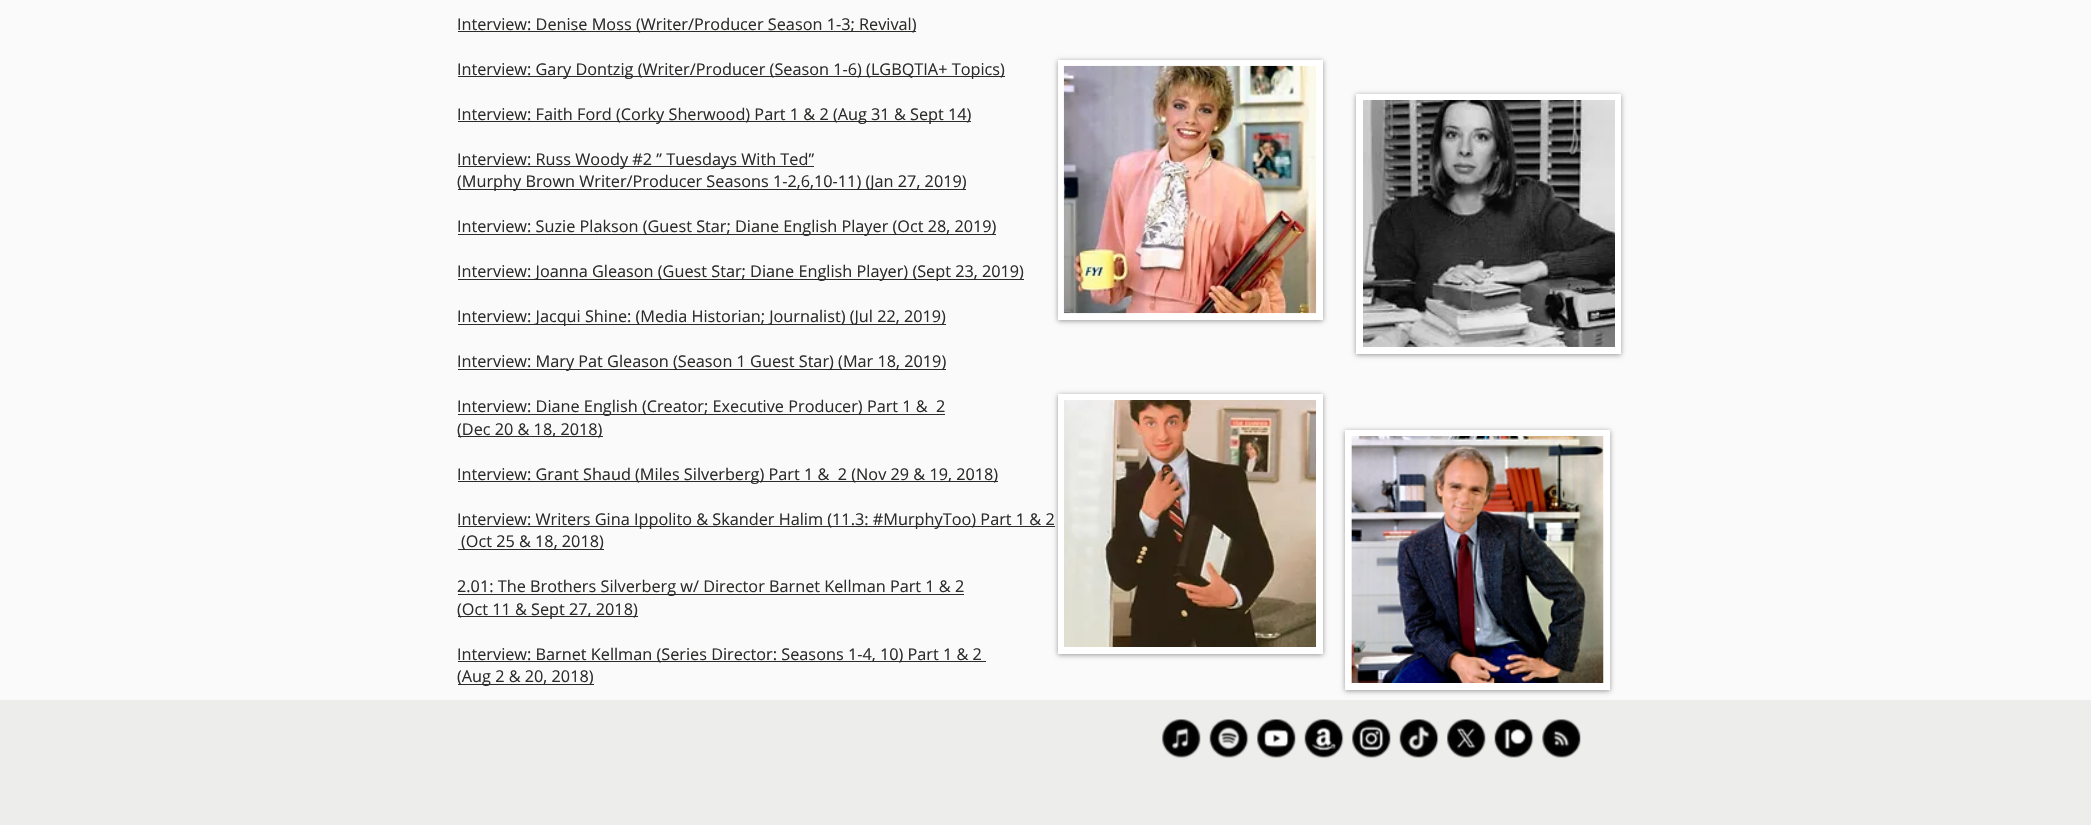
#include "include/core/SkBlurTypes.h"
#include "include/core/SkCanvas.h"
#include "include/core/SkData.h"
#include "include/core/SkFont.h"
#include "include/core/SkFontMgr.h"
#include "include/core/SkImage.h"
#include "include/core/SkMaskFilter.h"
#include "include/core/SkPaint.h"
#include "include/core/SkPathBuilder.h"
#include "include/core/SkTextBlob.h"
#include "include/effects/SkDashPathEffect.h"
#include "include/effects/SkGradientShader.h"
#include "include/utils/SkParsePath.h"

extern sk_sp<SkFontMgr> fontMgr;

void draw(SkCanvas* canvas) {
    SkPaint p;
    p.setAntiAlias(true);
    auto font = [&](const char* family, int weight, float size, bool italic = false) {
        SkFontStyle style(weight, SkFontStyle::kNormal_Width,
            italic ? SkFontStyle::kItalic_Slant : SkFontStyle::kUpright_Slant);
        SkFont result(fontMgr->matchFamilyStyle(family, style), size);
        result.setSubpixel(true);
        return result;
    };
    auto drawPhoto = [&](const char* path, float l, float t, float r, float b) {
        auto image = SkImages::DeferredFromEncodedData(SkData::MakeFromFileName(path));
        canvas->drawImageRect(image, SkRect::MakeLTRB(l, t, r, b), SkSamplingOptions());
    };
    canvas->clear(0xFFFAFAFA);
    p.setColor(0xFF2C2C2B);
    canvas->drawRect(SkRect::MakeLTRB(458, 31, 916, 32), p);
    auto font1 = font("Open Sans", 400, 16.25f);
    canvas->drawString("Interview: Denise Moss (Writer/Producer Season 1-3; Revival)", 457, 30, font1, p);
    canvas->drawRect(SkRect::MakeLTRB(458, 76, 1005, 77), p);
    canvas->drawString("Interview: Gary Dontzig (Writer/Producer (Season 1-6) (LGBQTIA+ Topics)", 457, 75, font1, p);
    canvas->drawRect(SkRect::MakeLTRB(458, 121, 971, 122), p);
    canvas->drawString("Interview: Faith Ford (Corky Sherwood) Part 1 & 2 (Aug 31 & Sept 14)", 457, 120, font1, p);
    canvas->drawRect(SkRect::MakeLTRB(458, 166, 814, 167), p);
    canvas->drawString("Interview: Russ Woody #2 ” Tuesdays With Ted”", 457, 165, font1, p);
    canvas->drawRect(SkRect::MakeLTRB(458, 189, 966, 190), p);
    canvas->drawString("(Murphy Brown Writer/Producer Seasons 1-2,6,10-11) (Jan 27, 2019)", 457, 187, font1, p);
    canvas->drawRect(SkRect::MakeLTRB(458, 234, 996, 235), p);
    canvas->drawString("Interview: Suzie Plakson (Guest Star; Diane English Player (Oct 28, 2019)", 457, 232, font1, p);
    canvas->drawRect(SkRect::MakeLTRB(458, 279, 1024, 280), p);
    canvas->drawString("Interview: Joanna Gleason (Guest Star; Diane English Player) (Sept 23, 2019)", 457, 277, font1, p);
    canvas->drawRect(SkRect::MakeLTRB(458, 324, 946, 325), p);
    canvas->drawString("Interview: Jacqui Shine: (Media Historian; Journalist) (Jul 22, 2019)", 457, 322, font1, p);
    canvas->drawRect(SkRect::MakeLTRB(458, 369, 946, 370), p);
    canvas->drawString("Interview: Mary Pat Gleason (Season 1 Guest Star) (Mar 18, 2019)", 457, 367, font1, p);
    canvas->drawRect(SkRect::MakeLTRB(458, 414, 945, 415), p);
    canvas->drawString("Interview: Diane English (Creator; Executive Producer) Part 1 &  2", 457, 412, font1, p);
    canvas->drawRect(SkRect::MakeLTRB(458, 436, 603, 437), p);
    canvas->drawString("(Dec 20 & 18, 2018)", 457, 435, font1, p);
    canvas->drawRect(SkRect::MakeLTRB(458, 481, 998, 482), p);
    canvas->drawString("Interview: Grant Shaud (Miles Silverberg) Part 1 &  2 (Nov 29 & 19, 2018)", 457, 480, font1, p);
    canvas->drawRect(SkRect::MakeLTRB(458, 526, 1055, 527), p);
    canvas->drawString("Interview: Writers Gina Ippolito & Skander Halim (11.3: #MurphyToo) Part 1 & 2", 457, 525, font1, p);
    canvas->drawRect(SkRect::MakeLTRB(458, 549, 604, 550), p);
    canvas->drawString("(Oct 25 & 18, 2018)", 461, 547, font1, p);
    canvas->drawRect(SkRect::MakeLTRB(458, 594, 964, 595), p);
    canvas->drawString("2.01: The Brothers Silverberg w/ Director Barnet Kellman Part 1 & 2", 457, 592, font1, p);
    canvas->drawRect(SkRect::MakeLTRB(458, 616, 638, 617), p);
    canvas->drawString("(Oct 11 & Sept 27, 2018)", 457, 615, font1, p);
    canvas->drawRect(SkRect::MakeLTRB(458, 661, 986, 662), p);
    canvas->drawString("Interview: Barnet Kellman (Series Director: Seasons 1-4, 10) Part 1 & 2", 457, 660, font1, p);
    canvas->drawRect(SkRect::MakeLTRB(458, 684, 594, 685), p);
    canvas->drawString("(Aug 2 & 20, 2018)", 457, 682, font1, p);
    p.setColor(0x66000000);
    p.setMaskFilter(SkMaskFilter::MakeBlur(kNormal_SkBlurStyle, 2.5f));
    canvas->drawRect(SkRect::MakeLTRB(1058, 61, 1323, 321), p);
    p.setMaskFilter(nullptr);
    p.setColor(0xFFFFFFFF);
    canvas->drawRect(SkRect::MakeLTRB(1058, 60, 1323, 320), p);
    drawPhoto("media/1.png", 1063, 65, 1317, 314);
    p.setColor(0x66000000);
    p.setMaskFilter(SkMaskFilter::MakeBlur(kNormal_SkBlurStyle, 2.5f));
    canvas->drawRect(SkRect::MakeLTRB(1356, 95, 1621, 355), p);
    p.setMaskFilter(nullptr);
    p.setColor(0xFFFFFFFF);
    canvas->drawRect(SkRect::MakeLTRB(1356, 94, 1621, 354), p);
    drawPhoto("media/2.png", 1363, 100, 1615, 347);
    p.setColor(0x66000000);
    p.setMaskFilter(SkMaskFilter::MakeBlur(kNormal_SkBlurStyle, 2.5f));
    canvas->drawRect(SkRect::MakeLTRB(1058, 395, 1323, 655), p);
    p.setMaskFilter(nullptr);
    p.setColor(0xFFFFFFFF);
    canvas->drawRect(SkRect::MakeLTRB(1058, 394, 1323, 654), p);
    drawPhoto("media/3.png", 1064, 400, 1316, 647);
    p.setColor(0x66000000);
    p.setMaskFilter(SkMaskFilter::MakeBlur(kNormal_SkBlurStyle, 2.5f));
    canvas->drawRect(SkRect::MakeLTRB(1345, 431, 1610, 691), p);
    p.setMaskFilter(nullptr);
    p.setColor(0xFFFFFFFF);
    canvas->drawRect(SkRect::MakeLTRB(1345, 430, 1610, 690), p);
    drawPhoto("media/4.png", 1351, 436, 1604, 683);
    p.setColor(0xFFEDEDEC);
    canvas->drawRect(SkRect::MakeLTRB(0, 700, 2091, 825), p);
    drawPhoto("media/5.png", 1162, 719, 1201, 758);
    drawPhoto("media/6.png", 1209, 719, 1249, 758);
    drawPhoto("media/7.png", 1257, 719, 1296, 758);
    drawPhoto("media/8.png", 1304, 719, 1344, 758);
    drawPhoto("media/9.png", 1352, 719, 1391, 758);
    drawPhoto("media/10.png", 1399, 719, 1439, 758);
    drawPhoto("media/11.png", 1447, 719, 1486, 758);
    drawPhoto("media/12.png", 1494, 719, 1534, 758);
    drawPhoto("media/13.png", 1542, 719, 1581, 758);
}
